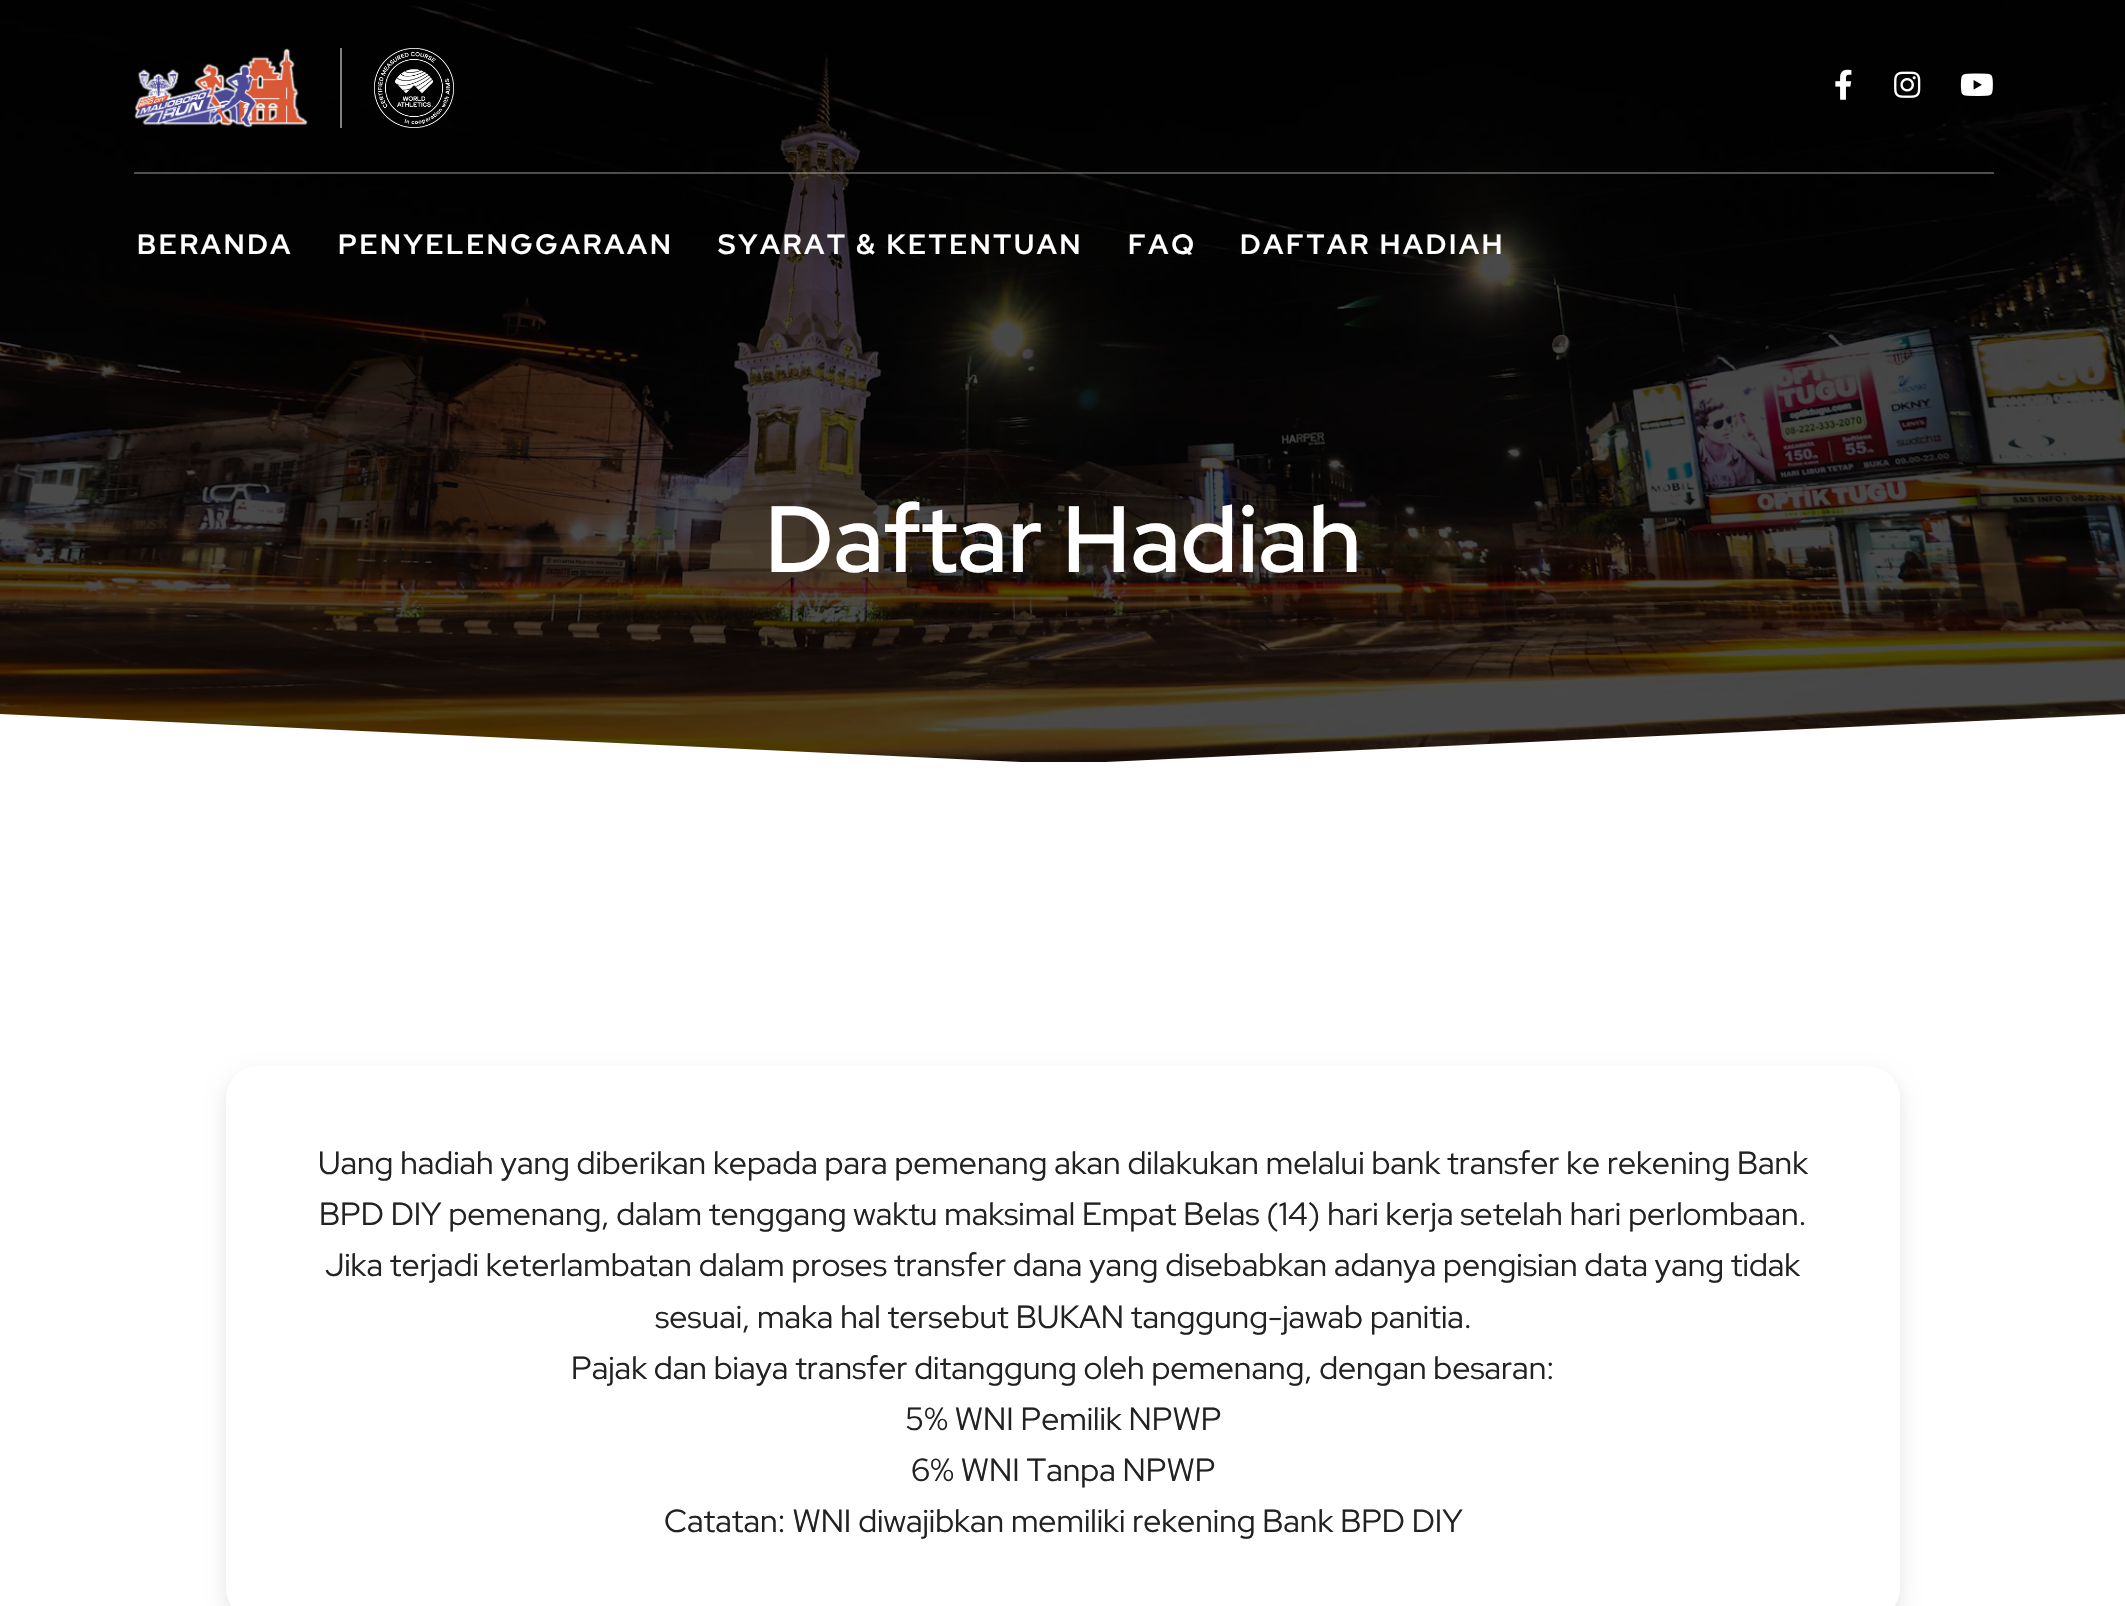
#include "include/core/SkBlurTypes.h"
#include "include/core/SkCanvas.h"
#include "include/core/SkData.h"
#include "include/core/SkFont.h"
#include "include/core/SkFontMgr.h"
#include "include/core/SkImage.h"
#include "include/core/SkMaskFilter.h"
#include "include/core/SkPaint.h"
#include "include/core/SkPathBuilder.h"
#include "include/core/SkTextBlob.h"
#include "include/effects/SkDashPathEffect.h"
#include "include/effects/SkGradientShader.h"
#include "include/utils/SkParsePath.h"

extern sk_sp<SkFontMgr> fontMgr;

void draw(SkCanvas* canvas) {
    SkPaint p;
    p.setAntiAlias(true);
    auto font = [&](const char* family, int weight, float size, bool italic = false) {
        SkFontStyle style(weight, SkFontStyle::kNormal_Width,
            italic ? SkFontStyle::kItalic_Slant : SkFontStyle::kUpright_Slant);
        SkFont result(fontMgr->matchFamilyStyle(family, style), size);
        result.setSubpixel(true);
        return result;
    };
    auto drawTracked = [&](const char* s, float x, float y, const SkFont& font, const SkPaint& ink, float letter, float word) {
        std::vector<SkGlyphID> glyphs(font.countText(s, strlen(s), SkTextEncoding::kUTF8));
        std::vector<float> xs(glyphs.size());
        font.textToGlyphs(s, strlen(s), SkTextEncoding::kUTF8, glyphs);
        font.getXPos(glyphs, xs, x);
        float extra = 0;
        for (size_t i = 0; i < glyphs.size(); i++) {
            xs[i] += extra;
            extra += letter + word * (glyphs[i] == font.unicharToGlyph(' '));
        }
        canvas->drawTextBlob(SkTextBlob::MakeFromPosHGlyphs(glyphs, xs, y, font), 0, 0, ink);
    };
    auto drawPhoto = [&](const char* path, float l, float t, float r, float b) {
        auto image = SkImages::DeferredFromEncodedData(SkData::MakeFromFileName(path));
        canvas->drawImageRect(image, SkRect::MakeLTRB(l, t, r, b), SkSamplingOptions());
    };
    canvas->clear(0xFFFFFFFF);
    drawPhoto("media/6.png", 0, 0, 2125, 762);
    p.setColor(0xFF808080);
    canvas->drawRect(SkRect::MakeLTRB(340, 48, 342, 128), p);
    drawPhoto("media/1.png", 134, 48, 308, 128);
    drawPhoto("media/2.png", 374, 48, 454, 128);
    drawPhoto("media/3.png", 1835, 69, 1852, 100);
    drawPhoto("media/4.png", 1894, 71, 1921, 98);
    drawPhoto("media/5.png", 1960, 73, 1993, 96);
    p.setColor(0x4DFFFFFF);
    canvas->drawRect(SkRect::MakeLTRB(134, 172, 1994, 174), p);
    auto font1 = font("Red Hat Display", 700, 28);
    p.setColor(0xFFFFFFFF);
    {
        const struct { const char* s; float x, y; } items[] = {
            {"BERANDA", 137, 254},
            {"PENYELENGGARAAN", 338, 254},
            {"SYARAT & KETENTUAN", 718, 254},
            {"FAQ", 1128, 254},
            {"DAFTAR HADIAH", 1240, 254},
        };
        for (auto [s, x, y] : items) {
            drawTracked(s, x, y, font1, p, 2.75f, 0);
        }
    }
    auto font2 = font("Red Hat Display", 600, 94);
    canvas->drawString("Daftar Hadiah", 765, 572, font2, p);
    canvas->drawPath(SkPathBuilder().moveTo(0, 714).lineTo(0, 764).lineTo(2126, 764).lineTo(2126, 714).lineTo(1063, 764).close().detach(), p);
    p.setColor(0x1A000000);
    p.setMaskFilter(SkMaskFilter::MakeBlur(kNormal_SkBlurStyle, 10));
    canvas->drawRoundRect(SkRect::MakeLTRB(226, 1074, 1900, 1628), 32, 32, p);
    p.setMaskFilter(nullptr);
    p.setColor(0xFFFFFFFF);
    canvas->drawRoundRect(SkRect::MakeLTRB(226, 1066, 1900, 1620), 32, 32, p);
    auto font3 = font("Red Hat Display", 400, 32);
    p.setColor(0xFF222222);
    {
        const struct { const char* s; float x, y; } items[] = {
            {"Uang hadiah yang diberikan kepada para pemenang akan dilakukan melalui bank transfer ke rekening Bank", 318, 1174},
            {"BPD DIY pemenang, dalam tenggang waktu maksimal Empat Belas (14) hari kerja setelah hari perlombaan.", 319, 1225},
            {"Jika terjadi keterlambatan dalam proses transfer dana yang disebabkan adanya pengisian data yang tidak", 325, 1276},
            {"sesuai, maka hal tersebut BUKAN tanggung-jawab panitia.", 655, 1328},
            {"Pajak dan biaya transfer ditanggung oleh pemenang, dengan besaran:", 571, 1379},
            {"5% WNI Pemilik NPWP", 905, 1430},
            {"6% WNI Tanpa NPWP", 911, 1481},
            {"Catatan: WNI diwajibkan memiliki rekening Bank BPD DIY", 664, 1532},
        };
        for (auto [s, x, y] : items) {
            canvas->drawString(s, x, y, font3, p);
        }
    }
}
